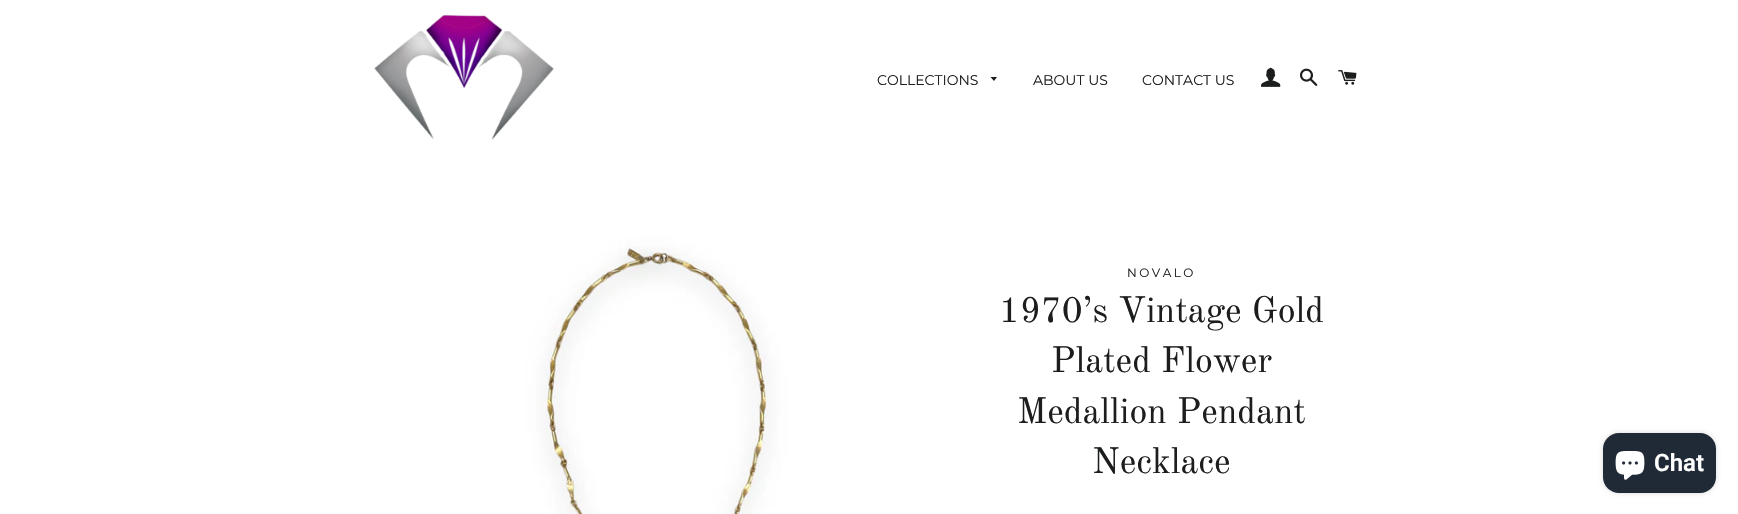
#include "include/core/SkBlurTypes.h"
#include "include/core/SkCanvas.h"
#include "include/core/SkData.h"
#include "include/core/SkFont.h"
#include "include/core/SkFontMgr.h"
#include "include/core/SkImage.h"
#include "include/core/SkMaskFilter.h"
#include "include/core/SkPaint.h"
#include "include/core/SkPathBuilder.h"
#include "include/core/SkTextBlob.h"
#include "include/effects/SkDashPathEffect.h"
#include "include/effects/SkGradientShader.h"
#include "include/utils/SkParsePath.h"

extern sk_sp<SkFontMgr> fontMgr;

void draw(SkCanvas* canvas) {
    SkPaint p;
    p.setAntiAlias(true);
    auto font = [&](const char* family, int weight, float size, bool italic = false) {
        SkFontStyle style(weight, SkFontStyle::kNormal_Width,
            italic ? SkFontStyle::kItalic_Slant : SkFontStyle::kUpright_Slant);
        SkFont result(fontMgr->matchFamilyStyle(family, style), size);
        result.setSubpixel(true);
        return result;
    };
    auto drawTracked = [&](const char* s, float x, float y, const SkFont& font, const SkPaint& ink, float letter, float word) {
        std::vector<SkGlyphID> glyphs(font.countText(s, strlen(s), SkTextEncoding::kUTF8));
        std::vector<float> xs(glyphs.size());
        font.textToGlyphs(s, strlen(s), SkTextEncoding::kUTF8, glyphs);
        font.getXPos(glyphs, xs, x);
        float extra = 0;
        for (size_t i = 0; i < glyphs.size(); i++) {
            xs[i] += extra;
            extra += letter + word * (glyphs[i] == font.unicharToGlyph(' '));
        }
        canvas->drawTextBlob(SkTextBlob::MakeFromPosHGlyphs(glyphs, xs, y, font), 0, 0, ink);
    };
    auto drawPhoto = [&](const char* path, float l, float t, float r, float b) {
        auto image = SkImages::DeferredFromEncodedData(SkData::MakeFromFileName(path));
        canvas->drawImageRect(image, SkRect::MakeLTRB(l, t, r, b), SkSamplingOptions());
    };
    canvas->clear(0xFFFFFFFF);
    drawPhoto("media/1.png", 374, 15, 554, 140);
    auto font1 = font("Montserrat", 100, 14);
    p.setColor(0xFF1C1D1D);
    canvas->drawString("COLLECTIONS", 877, 85, font1, p);
    canvas->drawPath(SkPathBuilder().moveTo(990.5f, 77).lineTo(994, 81).lineTo(997, 77).close().detach(), p);
    canvas->drawString("ABOUT US", 1033, 85, font1, p);
    canvas->drawString("CONTACT US", 1142, 85, font1, p);
    drawPhoto("media/2.png", 1261, 67, 1281, 87);
    drawPhoto("media/3.png", 1300, 68, 1318, 86);
    drawPhoto("media/4.png", 1338, 70, 1357, 85);
    drawPhoto("media/5.png", 374, 220, 939, 514);
    auto font2 = font("Montserrat", 100, 12);
    drawTracked("NOVALO", 1127, 277, font2, p, 2.5f, 0);
    auto font3 = font("Old Standard TT", 400, 36);
    {
        const struct { const char* s; float x, y; } items[] = {
            {"1970’s Vintage Gold", 999, 322},
            {"Plated Flower", 1051, 372},
            {"Medallion Pendant", 1017, 423},
            {"Necklace", 1092, 473},
        };
        for (auto [s, x, y] : items) {
            canvas->drawString(s, x, y, font3, p);
        }
    }
    p.setColor(0x26000000);
    p.setMaskFilter(SkMaskFilter::MakeBlur(kNormal_SkBlurStyle, 2.5f));
    canvas->drawRoundRect(SkRect::MakeLTRB(1603, 433, 1716, 493), 16, 16, p);
    p.setMaskFilter(nullptr);
    p.setColor(0xFF202A36);
    canvas->drawRoundRect(SkRect::MakeLTRB(1603, 433, 1716, 493), 16, 16, p);
    drawPhoto("media/6.png", 1615, 451, 1645, 480);
    auto font4 = font("Roboto", 600, 24);
    p.setColor(0xFFFFFFFF);
    canvas->drawString("Chat", 1654, 471, font4, p);
}
